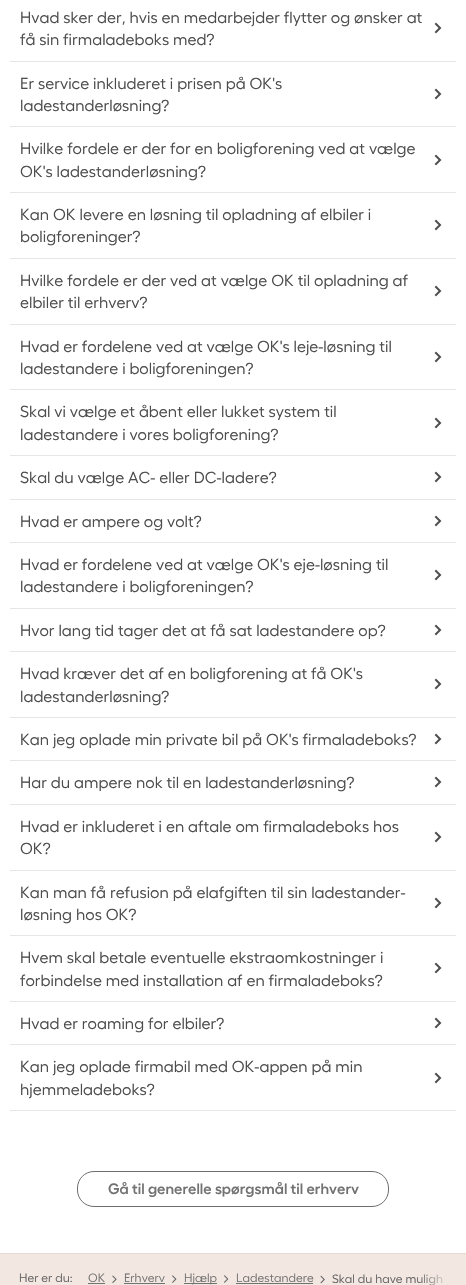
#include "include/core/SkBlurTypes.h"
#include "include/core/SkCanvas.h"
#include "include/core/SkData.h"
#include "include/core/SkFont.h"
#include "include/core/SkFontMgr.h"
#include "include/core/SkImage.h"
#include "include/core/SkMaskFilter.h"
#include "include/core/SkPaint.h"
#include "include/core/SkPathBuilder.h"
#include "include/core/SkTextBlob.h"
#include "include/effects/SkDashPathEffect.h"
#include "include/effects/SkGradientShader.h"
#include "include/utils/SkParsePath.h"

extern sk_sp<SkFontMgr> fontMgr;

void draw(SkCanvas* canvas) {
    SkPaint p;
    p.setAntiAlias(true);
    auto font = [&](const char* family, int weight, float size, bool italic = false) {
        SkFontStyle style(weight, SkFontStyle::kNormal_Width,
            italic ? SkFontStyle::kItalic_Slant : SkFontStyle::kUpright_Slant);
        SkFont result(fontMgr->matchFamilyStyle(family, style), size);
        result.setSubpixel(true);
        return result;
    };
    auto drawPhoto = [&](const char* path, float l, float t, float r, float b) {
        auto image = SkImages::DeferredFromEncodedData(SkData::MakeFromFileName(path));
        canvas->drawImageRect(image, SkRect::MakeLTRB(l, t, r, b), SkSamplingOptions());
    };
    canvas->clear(0xFFFFFFFF);
    p.setColor(0xFFE7E6E6);
    canvas->drawRect(SkRect::MakeLTRB(10, 1110, 456, 1111), p);
    auto font1 = font("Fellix", 400, 16);
    p.setColor(0xFF4C4C4C);
    canvas->drawString("Hvad sker der, hvis en medarbejder flytter og ønsker at", 20, 23, font1, p);
    canvas->drawString("få sin firmaladeboks med?", 20, 45, font1, p);
    drawPhoto("media/1.png", 434, 22, 442, 34);
    p.setColor(0xFFE7E6E6);
    canvas->drawRect(SkRect::MakeLTRB(10, 61, 456, 62), p);
    p.setColor(0xFF4C4C4C);
    canvas->drawString("Er service inkluderet i prisen på OK's", 20, 89, font1, p);
    canvas->drawString("ladestanderløsning?", 20, 111, font1, p);
    drawPhoto("media/1.png", 434, 88, 442, 100);
    p.setColor(0xFFE7E6E6);
    canvas->drawRect(SkRect::MakeLTRB(10, 126, 456, 127), p);
    p.setColor(0xFF4C4C4C);
    canvas->drawString("Hvilke fordele er der for en boligforening ved at vælge", 20, 154, font1, p);
    canvas->drawString("OK's ladestanderløsning?", 20, 177, font1, p);
    drawPhoto("media/1.png", 434, 154, 442, 166);
    p.setColor(0xFFE7E6E6);
    canvas->drawRect(SkRect::MakeLTRB(10, 192, 456, 193), p);
    p.setColor(0xFF4C4C4C);
    canvas->drawString("Kan OK levere en løsning til opladning af elbiler i", 20, 220, font1, p);
    canvas->drawString("boligforeninger?", 20, 242, font1, p);
    drawPhoto("media/1.png", 434, 219, 442, 231);
    p.setColor(0xFFE7E6E6);
    canvas->drawRect(SkRect::MakeLTRB(10, 258, 456, 259), p);
    p.setColor(0xFF4C4C4C);
    canvas->drawString("Hvilke fordele er der ved at vælge OK til opladning af", 20, 286, font1, p);
    canvas->drawString("elbiler til erhverv?", 20, 308, font1, p);
    drawPhoto("media/1.png", 434, 285, 442, 297);
    p.setColor(0xFFE7E6E6);
    canvas->drawRect(SkRect::MakeLTRB(10, 324, 456, 325), p);
    p.setColor(0xFF4C4C4C);
    canvas->drawString("Hvad er fordelene ved at vælge OK's leje-løsning til", 20, 352, font1, p);
    canvas->drawString("ladestandere i boligforeningen?", 20, 374, font1, p);
    drawPhoto("media/1.png", 434, 351, 442, 363);
    p.setColor(0xFFE7E6E6);
    canvas->drawRect(SkRect::MakeLTRB(10, 389, 456, 390), p);
    p.setColor(0xFF4C4C4C);
    canvas->drawString("Skal vi vælge et åbent eller lukket system til", 20, 417, font1, p);
    canvas->drawString("ladestandere i vores boligforening?", 20, 440, font1, p);
    drawPhoto("media/1.png", 434, 417, 442, 429);
    p.setColor(0xFFE7E6E6);
    canvas->drawRect(SkRect::MakeLTRB(10, 455, 456, 456), p);
    p.setColor(0xFF4C4C4C);
    canvas->drawString("Skal du vælge AC- eller DC-ladere?", 20, 483, font1, p);
    drawPhoto("media/1.png", 434, 471, 442, 483);
    p.setColor(0xFFE7E6E6);
    canvas->drawRect(SkRect::MakeLTRB(10, 499, 456, 500), p);
    p.setColor(0xFF4C4C4C);
    canvas->drawString("Hvad er ampere og volt?", 20, 527, font1, p);
    drawPhoto("media/1.png", 434, 515, 442, 527);
    p.setColor(0xFFE7E6E6);
    canvas->drawRect(SkRect::MakeLTRB(10, 542, 456, 543), p);
    p.setColor(0xFF4C4C4C);
    canvas->drawString("Hvad er fordelene ved at vælge OK's eje-løsning til", 20, 570, font1, p);
    canvas->drawString("ladestandere i boligforeningen?", 20, 592, font1, p);
    drawPhoto("media/1.png", 434, 569, 442, 581);
    p.setColor(0xFFE7E6E6);
    canvas->drawRect(SkRect::MakeLTRB(10, 608, 456, 609), p);
    p.setColor(0xFF4C4C4C);
    canvas->drawString("Hvor lang tid tager det at få sat ladestandere op?", 20, 636, font1, p);
    drawPhoto("media/1.png", 434, 624, 442, 636);
    p.setColor(0xFFE7E6E6);
    canvas->drawRect(SkRect::MakeLTRB(10, 651, 456, 652), p);
    p.setColor(0xFF4C4C4C);
    canvas->drawString("Hvad kræver det af en boligforening at få OK's", 20, 679, font1, p);
    canvas->drawString("ladestanderløsning?", 20, 702, font1, p);
    drawPhoto("media/1.png", 434, 678, 442, 690);
    p.setColor(0xFFE7E6E6);
    canvas->drawRect(SkRect::MakeLTRB(10, 717, 456, 718), p);
    p.setColor(0xFF4C4C4C);
    canvas->drawString("Kan jeg oplade min private bil på OK's firmaladeboks?", 20, 745, font1, p);
    drawPhoto("media/1.png", 434, 733, 442, 745);
    p.setColor(0xFFE7E6E6);
    canvas->drawRect(SkRect::MakeLTRB(10, 760, 456, 761), p);
    p.setColor(0xFF4C4C4C);
    canvas->drawString("Har du ampere nok til en ladestanderløsning?", 20, 788, font1, p);
    drawPhoto("media/1.png", 434, 776, 442, 788);
    p.setColor(0xFFE7E6E6);
    canvas->drawRect(SkRect::MakeLTRB(10, 804, 456, 805), p);
    p.setColor(0xFF4C4C4C);
    canvas->drawString("Hvad er inkluderet i en aftale om firmaladeboks hos", 20, 832, font1, p);
    canvas->drawString("OK?", 20, 854, font1, p);
    drawPhoto("media/1.png", 434, 831, 442, 843);
    p.setColor(0xFFE7E6E6);
    canvas->drawRect(SkRect::MakeLTRB(10, 870, 456, 871), p);
    p.setColor(0xFF4C4C4C);
    canvas->drawString("Kan man få refusion på elafgiften til sin ladestander-", 20, 898, font1, p);
    canvas->drawString("løsning hos OK?", 20, 920, font1, p);
    drawPhoto("media/1.png", 434, 897, 442, 909);
    p.setColor(0xFFE7E6E6);
    canvas->drawRect(SkRect::MakeLTRB(10, 935, 456, 936), p);
    p.setColor(0xFF4C4C4C);
    canvas->drawString("Hvem skal betale eventuelle ekstraomkostninger i", 20, 963, font1, p);
    canvas->drawString("forbindelse med installation af en firmaladeboks?", 20, 986, font1, p);
    drawPhoto("media/1.png", 434, 962, 442, 974);
    p.setColor(0xFFE7E6E6);
    canvas->drawRect(SkRect::MakeLTRB(10, 1001, 456, 1002), p);
    p.setColor(0xFF4C4C4C);
    canvas->drawString("Hvad er roaming for elbiler?", 20, 1029, font1, p);
    drawPhoto("media/1.png", 434, 1017, 442, 1029);
    p.setColor(0xFFE7E6E6);
    canvas->drawRect(SkRect::MakeLTRB(10, 1044, 456, 1045), p);
    p.setColor(0xFF4C4C4C);
    canvas->drawString("Kan jeg oplade firmabil med OK-appen på min", 20, 1072, font1, p);
    canvas->drawString("hjemmeladeboks?", 20, 1095, font1, p);
    drawPhoto("media/1.png", 434, 1072, 442, 1084);
    p.setStyle(SkPaint::kStroke_Style);
    p.setStrokeWidth(1);
    p.setColor(0xFF6D6D6D);
    canvas->drawRoundRect(SkRect::MakeLTRB(77.5f, 1171.5f, 388.5f, 1206.5f), 16.5f, 16.5f, p);
    auto font2 = font("Fellix", 600, 15);
    p.setStyle(SkPaint::kFill_Style);
    p.setColor(0xFF727272);
    canvas->drawString("Gå til generelle spørgsmål til erhverv", 108, 1194, font2, p);
    p.setColor(0xFFF2E7E1);
    canvas->drawRect(SkRect::MakeLTRB(0, 1254, 466, 1285), p);
    p.setColor(0xFFE6D9D2);
    canvas->drawRect(SkRect::MakeLTRB(0, 1253, 466, 1254), p);
    auto font3 = font("Fellix", 400, 12);
    p.setColor(0xFF636363);
    canvas->drawString("Her er du:", 19, 1282, font3, p);
    p.setColor(0xFF727272);
    canvas->drawString("OK", 88, 1282, font3, p);
    canvas->drawRect(SkRect::MakeLTRB(88, 1283, 105, 1284), p);
    drawPhoto("media/2.png", 112, 1275, 117, 1283);
    canvas->drawString("Erhverv", 124, 1282, font3, p);
    canvas->drawRect(SkRect::MakeLTRB(124, 1283, 165, 1284), p);
    drawPhoto("media/3.png", 172, 1275, 177, 1283);
    canvas->drawRect(SkRect::MakeLTRB(184, 1283, 217, 1284), p);
    canvas->drawString("Hjælp", 184, 1282, font3, p);
    drawPhoto("media/4.png", 224, 1275, 229, 1283);
    canvas->drawString("Ladestandere", 236, 1282, font3, p);
    canvas->drawRect(SkRect::MakeLTRB(236, 1283, 313, 1284), p);
    drawPhoto("media/5.png", 320, 1275, 325, 1284);
    p.setColor(0xFF636363);
    canvas->drawString("Skal du have muligh", 332, 1283, font3, p);
    {
        const SkColor colors[] = {0x00FFFFFF, 0x00F2E7E1, 0xFFF2E7E1};
        const float stops[] = {0, 0, 0.69f};
        const SkPoint ends[] = {{419, 1279}, {466, 1279}};
        p.setShader(SkGradientShader::MakeLinear(ends, colors, stops, 3, SkTileMode::kClamp));
        p.setAlpha(255);
    }
    canvas->drawRect(SkRect::MakeLTRB(420, 1274, 443, 1285), p);
}
